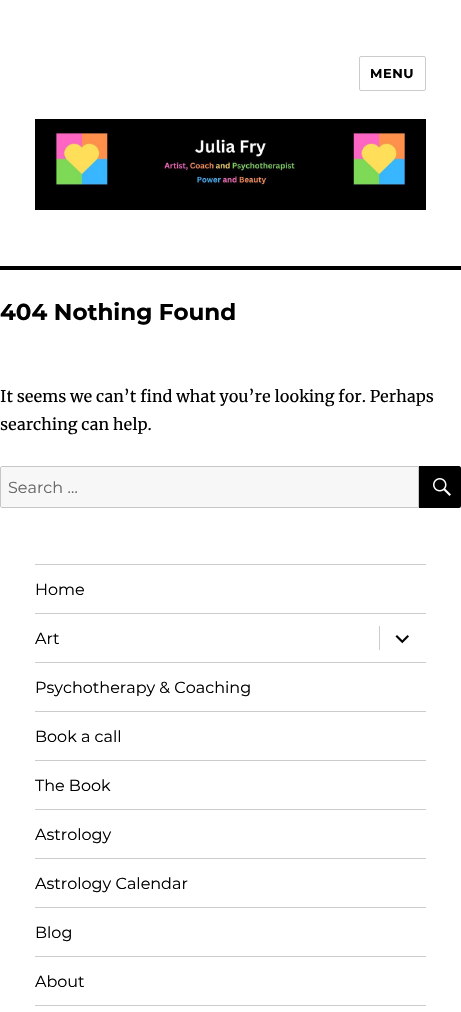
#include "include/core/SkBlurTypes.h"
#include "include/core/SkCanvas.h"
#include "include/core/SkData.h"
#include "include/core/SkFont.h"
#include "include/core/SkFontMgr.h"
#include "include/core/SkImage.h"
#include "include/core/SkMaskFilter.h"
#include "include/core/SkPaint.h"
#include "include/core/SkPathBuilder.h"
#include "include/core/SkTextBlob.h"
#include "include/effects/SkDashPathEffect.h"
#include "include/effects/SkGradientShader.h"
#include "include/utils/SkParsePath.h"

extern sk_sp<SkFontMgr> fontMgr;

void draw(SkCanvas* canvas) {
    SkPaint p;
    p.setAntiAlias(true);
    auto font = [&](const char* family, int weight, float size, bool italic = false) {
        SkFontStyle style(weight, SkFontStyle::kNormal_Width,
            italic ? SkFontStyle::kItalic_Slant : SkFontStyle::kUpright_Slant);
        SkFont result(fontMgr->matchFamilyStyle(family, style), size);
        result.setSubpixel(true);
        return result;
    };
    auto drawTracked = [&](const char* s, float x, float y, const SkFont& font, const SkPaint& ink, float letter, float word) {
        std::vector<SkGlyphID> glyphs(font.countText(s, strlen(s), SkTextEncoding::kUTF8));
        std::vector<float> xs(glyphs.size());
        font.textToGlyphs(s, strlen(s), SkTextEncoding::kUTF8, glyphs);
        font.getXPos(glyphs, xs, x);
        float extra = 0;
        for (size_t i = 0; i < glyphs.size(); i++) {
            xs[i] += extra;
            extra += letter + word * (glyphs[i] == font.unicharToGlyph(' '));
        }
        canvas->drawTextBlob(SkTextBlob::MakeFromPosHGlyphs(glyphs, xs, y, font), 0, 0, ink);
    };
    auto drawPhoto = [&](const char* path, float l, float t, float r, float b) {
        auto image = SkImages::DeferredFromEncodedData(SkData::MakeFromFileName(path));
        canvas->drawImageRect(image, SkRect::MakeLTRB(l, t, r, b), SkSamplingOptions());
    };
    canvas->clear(0xFFFFFFFF);
    p.setStyle(SkPaint::kStroke_Style);
    p.setStrokeWidth(1);
    p.setColor(0xFFCCCCCC);
    canvas->drawRoundRect(SkRect::MakeLTRB(359.5f, 56.5f, 425.5f, 90.5f), 1.5f, 1.5f, p);
    auto font1 = font("Montserrat", 100, 13);
    p.setStyle(SkPaint::kFill_Style);
    p.setColor(0xFF000000);
    drawTracked("MENU", 370, 78, font1, p, 0.5f, 0);
    drawPhoto("media/1.png", 35, 119, 426, 210);
    canvas->drawRect(SkRect::MakeLTRB(0, 266, 461, 270), p);
    auto font2 = font("Montserrat", 100, 23);
    canvas->drawString("404 Nothing Found", 0, 320, font2, p);
    auto font3 = font("Merriweather", 400, 16);
    canvas->drawString("It seems we can’t find what you’re looking for. Perhaps", 0, 402, font3, p);
    canvas->drawString("searching can help.", 0, 430, font3, p);
    p.setColor(0xFFF7F7F7);
    canvas->drawPath(SkPathBuilder().moveTo(2, 466.5f).lineTo(418.5f, 466.5f).lineTo(418.5f, 507.5f).lineTo(2, 507.5f).cubicTo(1, 507.5f, 0.5f, 507, 0.5f, 506).lineTo(0.5f, 468).cubicTo(0.5f, 467, 1, 466.5f, 2, 466.5f).close().detach(), p);
    p.setStyle(SkPaint::kStroke_Style);
    p.setColor(0xFFC6C6C6);
    canvas->drawPath(SkPathBuilder().moveTo(2, 466.5f).lineTo(418.5f, 466.5f).lineTo(418.5f, 507.5f).lineTo(2, 507.5f).cubicTo(1, 507.5f, 0.5f, 507, 0.5f, 506).lineTo(0.5f, 468).cubicTo(0.5f, 467, 1, 466.5f, 2, 466.5f).close().detach(), p);
    auto font4 = font("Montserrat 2", 100, 16);
    p.setStyle(SkPaint::kFill_Style);
    p.setColor(0xFF686868);
    canvas->drawString("Search …", 8, 493, font4, p);
    p.setColor(0xFF000000);
    canvas->drawPath(SkPathBuilder().moveTo(419, 466).lineTo(459, 466).cubicTo(460, 466, 461, 467, 461, 468).lineTo(461, 506).cubicTo(461, 507, 460, 508, 459, 508).lineTo(419, 508).close().detach(), p);
    drawPhoto("media/2.png", 433, 478, 451, 496);
    p.setColor(0xFFCCCCCC);
    canvas->drawRect(SkRect::MakeLTRB(35, 564, 426, 565), p);
    p.setColor(0xFF000000);
    canvas->drawString("Home", 35, 595, font4, p);
    p.setColor(0xFFCCCCCC);
    canvas->drawRect(SkRect::MakeLTRB(35, 613, 426, 614), p);
    p.setColor(0xFF000000);
    canvas->drawString("Art", 35, 644, font4, p);
    p.setColor(0xFFCCCCCC);
    canvas->drawRect(SkRect::MakeLTRB(379, 626, 380, 650), p);
    drawPhoto("media/3.png", 395, 635, 409, 644);
    canvas->drawRect(SkRect::MakeLTRB(35, 662, 426, 663), p);
    p.setColor(0xFF000000);
    canvas->drawString("Psychotherapy & Coaching", 35, 693, font4, p);
    p.setColor(0xFFCCCCCC);
    canvas->drawRect(SkRect::MakeLTRB(35, 711, 426, 712), p);
    p.setColor(0xFF000000);
    canvas->drawString("Book a call", 35, 742, font4, p);
    p.setColor(0xFFCCCCCC);
    canvas->drawRect(SkRect::MakeLTRB(35, 760, 426, 761), p);
    p.setColor(0xFF000000);
    canvas->drawString("The Book", 35, 791, font4, p);
    p.setColor(0xFFCCCCCC);
    canvas->drawRect(SkRect::MakeLTRB(35, 809, 426, 810), p);
    p.setColor(0xFF000000);
    canvas->drawString("Astrology", 35, 840, font4, p);
    p.setColor(0xFFCCCCCC);
    canvas->drawRect(SkRect::MakeLTRB(35, 858, 426, 859), p);
    p.setColor(0xFF000000);
    canvas->drawString("Astrology Calendar", 35, 889, font4, p);
    p.setColor(0xFFCCCCCC);
    canvas->drawRect(SkRect::MakeLTRB(35, 907, 426, 908), p);
    p.setColor(0xFF000000);
    canvas->drawString("Blog", 35, 938, font4, p);
    p.setColor(0xFFCCCCCC);
    canvas->drawRect(SkRect::MakeLTRB(35, 956, 426, 957), p);
    p.setColor(0xFF000000);
    canvas->drawString("About", 35, 987, font4, p);
    p.setColor(0xFFCCCCCC);
    canvas->drawRect(SkRect::MakeLTRB(35, 1005, 426, 1006), p);
}
